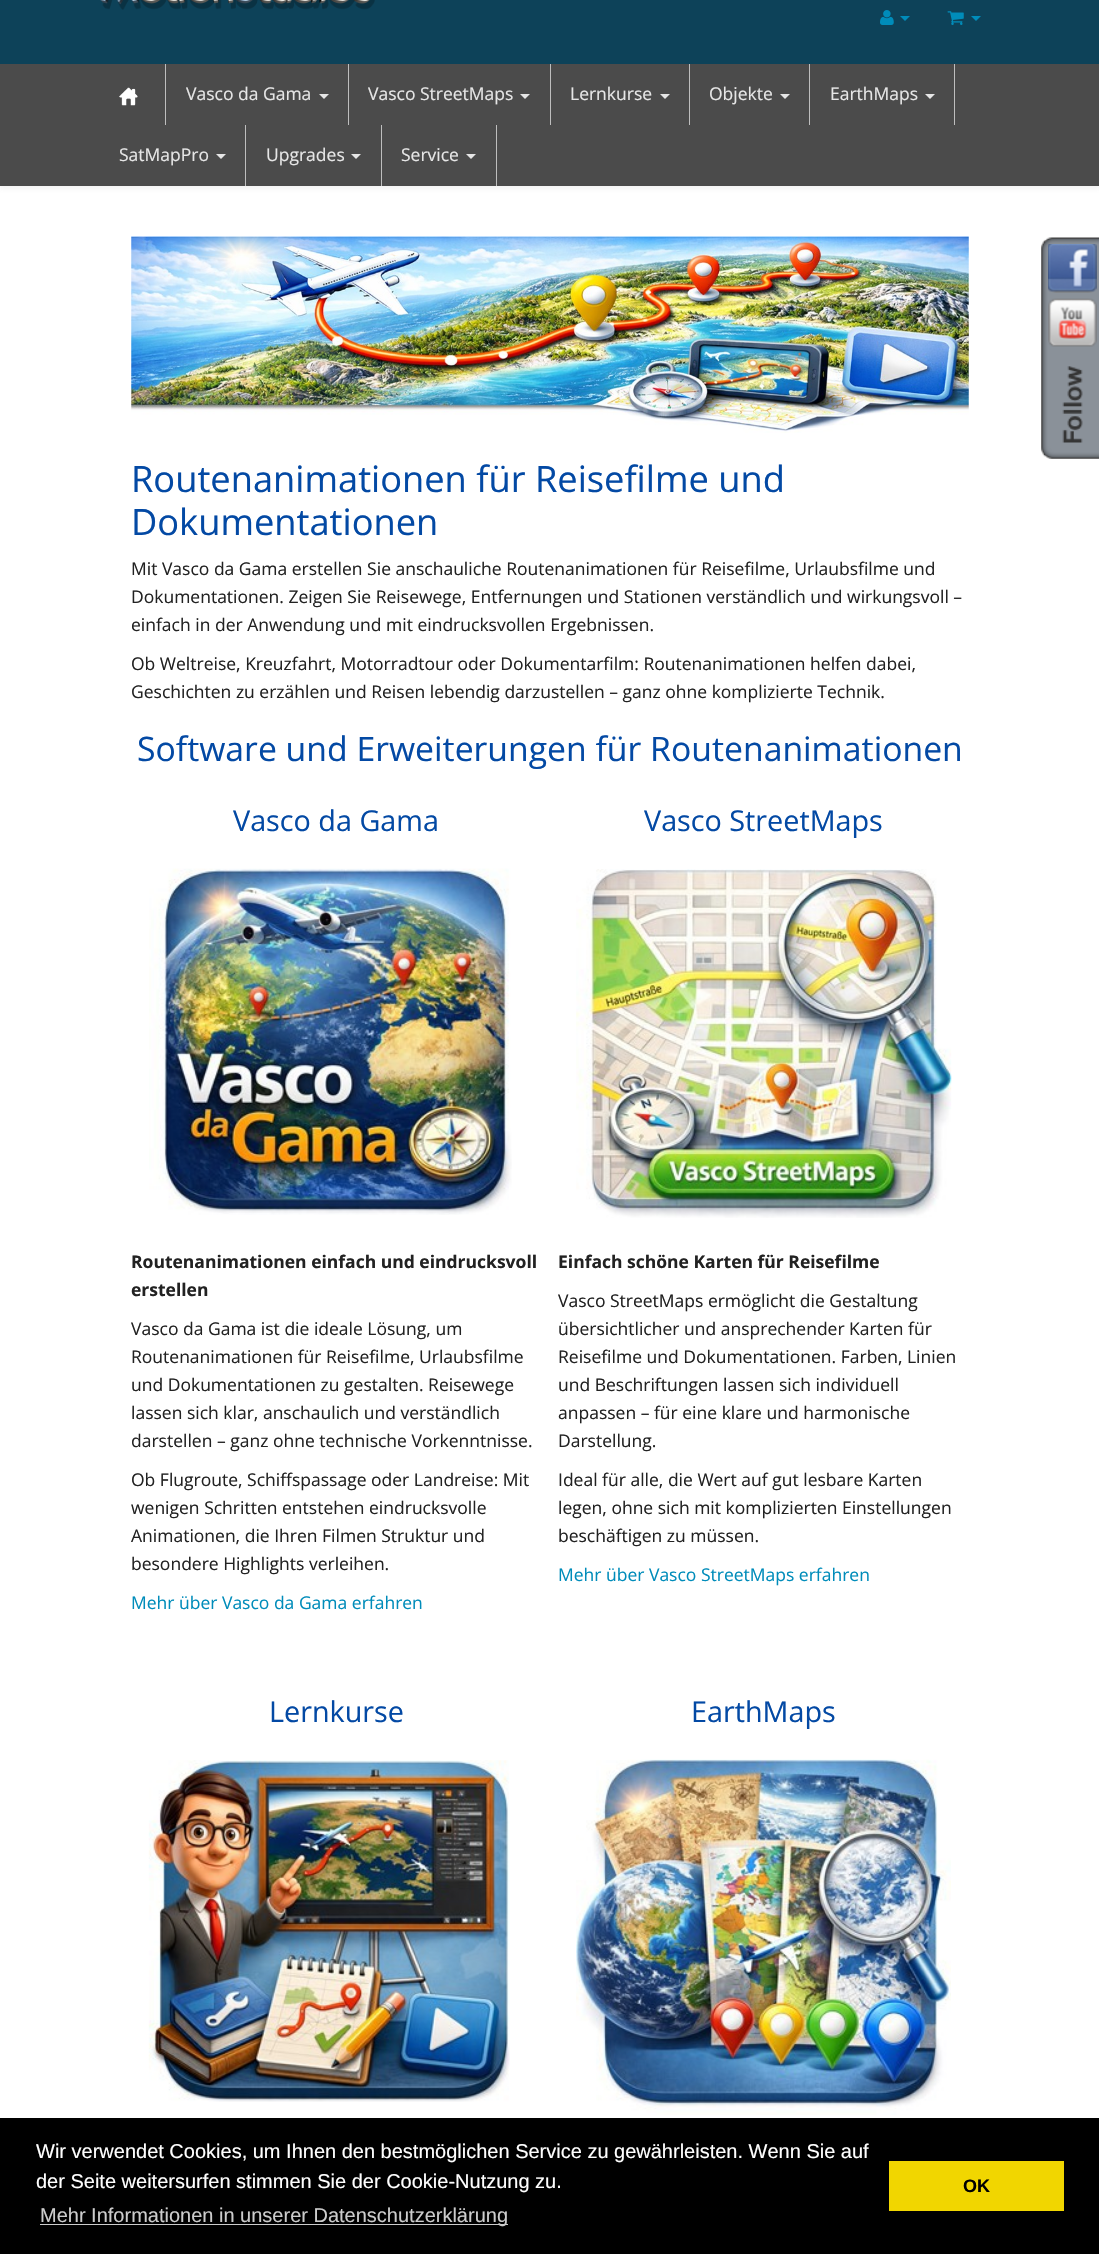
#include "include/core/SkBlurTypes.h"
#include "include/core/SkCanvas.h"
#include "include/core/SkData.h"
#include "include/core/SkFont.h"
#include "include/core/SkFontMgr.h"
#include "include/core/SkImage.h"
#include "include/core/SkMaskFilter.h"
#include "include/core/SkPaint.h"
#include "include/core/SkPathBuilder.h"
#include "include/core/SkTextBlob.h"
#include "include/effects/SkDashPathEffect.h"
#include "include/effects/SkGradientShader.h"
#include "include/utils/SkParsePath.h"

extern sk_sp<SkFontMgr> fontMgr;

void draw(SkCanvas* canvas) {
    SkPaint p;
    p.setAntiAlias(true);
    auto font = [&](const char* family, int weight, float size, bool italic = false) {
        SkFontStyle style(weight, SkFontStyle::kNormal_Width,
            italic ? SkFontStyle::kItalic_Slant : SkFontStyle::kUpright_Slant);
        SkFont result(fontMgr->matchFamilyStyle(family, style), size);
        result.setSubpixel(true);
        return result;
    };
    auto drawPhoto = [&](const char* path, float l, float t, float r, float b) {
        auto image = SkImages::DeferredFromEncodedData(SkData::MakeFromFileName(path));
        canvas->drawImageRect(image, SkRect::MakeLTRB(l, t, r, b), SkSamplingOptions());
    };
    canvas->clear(0xFFFFFFFF);
    p.setColor(0x1A6A6A6A);
    p.setMaskFilter(SkMaskFilter::MakeBlur(kNormal_SkBlurStyle, 3));
    canvas->drawRect(SkRect::MakeLTRB(-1, -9, 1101, 188), p);
    p.setMaskFilter(nullptr);
    p.setColor(0xFF0D4259);
    canvas->drawRect(SkRect::MakeLTRB(0, 0, 1099, 64), p);
    drawPhoto("media/1.png", 100, 0, 375, 10);
    drawPhoto("media/2.png", 880, 10, 894, 25);
    p.setColor(0xFF008CBA);
    canvas->drawPath(SkPathBuilder().moveTo(900, 16).lineTo(910, 16).lineTo(905, 21).close().detach(), p);
    drawPhoto("media/3.png", 947, 11, 964, 25);
    canvas->drawPath(SkPathBuilder().moveTo(971, 16).lineTo(981, 16).lineTo(976, 21).close().detach(), p);
    p.setColor(0xFF4B4B4B);
    canvas->drawRect(SkRect::MakeLTRB(0, 64, 1099, 186), p);
    p.setColor(0xFFBEBEBE);
    canvas->drawRect(SkRect::MakeLTRB(165, 64, 166, 125), p);
    drawPhoto("media/4.png", 119, 87, 138, 106);
    canvas->drawRect(SkRect::MakeLTRB(348, 64, 349, 125), p);
    auto font1 = font("Open Sans", 400, 17.5f);
    p.setColor(0xFFE6E6E6);
    canvas->drawString("Vasco da Gama", 186, 100, font1, p);
    canvas->drawPath(SkPathBuilder().moveTo(319, 94).lineTo(329, 94).lineTo(324, 99).close().detach(), p);
    p.setColor(0xFFBEBEBE);
    canvas->drawRect(SkRect::MakeLTRB(550, 64, 551, 125), p);
    p.setColor(0xFFE6E6E6);
    canvas->drawString("Vasco StreetMaps", 368, 100, font1, p);
    canvas->drawPath(SkPathBuilder().moveTo(520, 94).lineTo(530, 94).lineTo(525, 99).close().detach(), p);
    p.setColor(0xFFBEBEBE);
    canvas->drawRect(SkRect::MakeLTRB(689, 64, 690, 125), p);
    p.setColor(0xFFE6E6E6);
    canvas->drawString("Lernkurse", 570, 100, font1, p);
    canvas->drawPath(SkPathBuilder().moveTo(660, 94).lineTo(670, 94).lineTo(665, 99).close().detach(), p);
    p.setColor(0xFFBEBEBE);
    canvas->drawRect(SkRect::MakeLTRB(809, 64, 810, 125), p);
    p.setColor(0xFFE6E6E6);
    canvas->drawString("Objekte", 709, 100, font1, p);
    canvas->drawPath(SkPathBuilder().moveTo(780, 94).lineTo(790, 94).lineTo(785, 99).close().detach(), p);
    p.setColor(0xFFBEBEBE);
    canvas->drawRect(SkRect::MakeLTRB(954, 64, 955, 125), p);
    p.setColor(0xFFE6E6E6);
    canvas->drawString("EarthMaps", 830, 100, font1, p);
    canvas->drawPath(SkPathBuilder().moveTo(925, 94).lineTo(935, 94).lineTo(930, 99).close().detach(), p);
    p.setColor(0xFFBEBEBE);
    canvas->drawRect(SkRect::MakeLTRB(245, 125, 246, 186), p);
    p.setColor(0xFFE6E6E6);
    canvas->drawString("SatMapPro", 119, 161, font1, p);
    canvas->drawPath(SkPathBuilder().moveTo(216, 154).lineTo(226, 154).lineTo(221, 159).close().detach(), p);
    p.setColor(0xFFBEBEBE);
    canvas->drawRect(SkRect::MakeLTRB(381, 125, 382, 186), p);
    p.setColor(0xFFE6E6E6);
    canvas->drawString("Upgrades", 266, 161, font1, p);
    canvas->drawPath(SkPathBuilder().moveTo(351, 154).lineTo(361, 154).lineTo(356, 159).close().detach(), p);
    p.setColor(0xFFBEBEBE);
    canvas->drawRect(SkRect::MakeLTRB(496, 125, 497, 186), p);
    p.setColor(0xFFE6E6E6);
    canvas->drawString("Service", 401, 161, font1, p);
    canvas->drawPath(SkPathBuilder().moveTo(466, 154).lineTo(476, 154).lineTo(471, 159).close().detach(), p);
    drawPhoto("media/5.png", 131, 236, 969, 433);
    auto font2 = font("Open Sans", 400, 36.25f);
    p.setColor(0xFF0349A4);
    canvas->drawString("Routenanimationen für Reisefilme und", 131, 492, font2, p);
    canvas->drawString("Dokumentationen", 131, 535, font2, p);
    p.setColor(0xFF222222);
    {
        const struct { const char* s; float x, y; } items[] = {
            {"Mit Vasco da Gama erstellen Sie anschauliche Routenanimationen für Reisefilme, Urlaubsfilme und", 131, 575},
            {"Dokumentationen. Zeigen Sie Reisewege, Entfernungen und Stationen verständlich und wirkungsvoll –", 131, 603},
            {"einfach in der Anwendung und mit eindrucksvollen Ergebnissen.", 131, 631},
            {"Ob Weltreise, Kreuzfahrt, Motorradtour oder Dokumentarfilm: Routenanimationen helfen dabei,", 131, 670},
            {"Geschichten zu erzählen und Reisen lebendig darzustellen – ganz ohne komplizierte Technik.", 131, 698},
        };
        for (auto [s, x, y] : items) {
            canvas->drawString(s, x, y, font1, p);
        }
    }
    auto font3 = font("Open Sans", 400, 33.75f);
    p.setColor(0xFF0349A4);
    canvas->drawString("Software und Erweiterungen für Routenanimationen", 137, 761, font3, p);
    auto font4 = font("Open Sans", 400, 28.75f);
    canvas->drawString("Vasco da Gama", 233, 831, font4, p);
    drawPhoto("media/6.png", 149, 868, 512, 1215);
    auto font5 = font("Open Sans", 700, 17.5f);
    p.setColor(0xFF222222);
    canvas->drawString("Routenanimationen einfach und eindrucksvoll", 131, 1268, font5, p);
    canvas->drawString("erstellen", 131, 1296, font5, p);
    {
        const struct { const char* s; float x, y; } items[] = {
            {"Vasco da Gama ist die ideale Lösung, um", 131, 1335},
            {"Routenanimationen für Reisefilme, Urlaubsfilme", 131, 1363},
            {"und Dokumentationen zu gestalten. Reisewege", 131, 1391},
            {"lassen sich klar, anschaulich und verständlich", 131, 1419},
            {"darstellen – ganz ohne technische Vorkenntnisse.", 131, 1447},
            {"Ob Flugroute, Schiffspassage oder Landreise: Mit", 131, 1486},
            {"wenigen Schritten entstehen eindrucksvolle", 131, 1514},
            {"Animationen, die Ihren Filmen Struktur und", 131, 1542},
            {"besondere Highlights verleihen.", 131, 1570},
        };
        for (auto [s, x, y] : items) {
            canvas->drawString(s, x, y, font1, p);
        }
    }
    p.setColor(0xFF008CBA);
    canvas->drawString("Mehr über Vasco da Gama erfahren", 131, 1609, font1, p);
    p.setColor(0xFF0349A4);
    canvas->drawString("Vasco StreetMaps", 644, 831, font4, p);
    drawPhoto("media/7.png", 576, 869, 952, 1218);
    p.setColor(0xFF222222);
    canvas->drawString("Einfach schöne Karten für Reisefilme", 558, 1268, font5, p);
    {
        const struct { const char* s; float x, y; } items[] = {
            {"Vasco StreetMaps ermöglicht die Gestaltung", 558, 1307},
            {"übersichtlicher und ansprechender Karten für", 558, 1335},
            {"Reisefilme und Dokumentationen. Farben, Linien", 558, 1363},
            {"und Beschriftungen lassen sich individuell", 558, 1391},
            {"anpassen – für eine klare und harmonische", 558, 1419},
            {"Darstellung.", 558, 1447},
            {"Ideal für alle, die Wert auf gut lesbare Karten", 558, 1486},
            {"legen, ohne sich mit komplizierten Einstellungen", 558, 1514},
            {"beschäftigen zu müssen.", 558, 1542},
        };
        for (auto [s, x, y] : items) {
            canvas->drawString(s, x, y, font1, p);
        }
    }
    p.setColor(0xFF008CBA);
    canvas->drawString("Mehr über Vasco StreetMaps erfahren", 558, 1581, font1, p);
    p.setColor(0xFF0349A4);
    canvas->drawString("Lernkurse", 269, 1722, font4, p);
    drawPhoto("media/8.png", 148, 1760, 510, 2102);
    canvas->drawString("EarthMaps", 691, 1722, font4, p);
    drawPhoto("media/9.png", 576, 1759, 951, 2115);
    drawPhoto("media/10.png", 1041, 237, 1099, 459);
    drawPhoto("media/11.png", 1048, 244, 1097, 293);
    drawPhoto("media/12.png", 1048, 298, 1097, 347);
    p.setColor(0xFF000000);
    canvas->drawRect(SkRect::MakeLTRB(0, 2118, 1099, 2254), p);
    auto font6 = font("Liberation Sans", 400, 20);
    p.setColor(0xFFFFFFFF);
    canvas->drawString("Wir verwendet Cookies, um Ihnen den bestmöglichen Service zu gewährleisten. Wenn Sie auf", 36, 2158, font6, p);
    canvas->drawString("der Seite weitersurfen stimmen Sie der Cookie-Nutzung zu.", 36, 2188, font6, p);
    p.setColor(0xFFCCCCCC);
    canvas->drawRect(SkRect::MakeLTRB(40, 2224, 508, 2225), p);
    canvas->drawString("Mehr Informationen in unserer Datenschutzerklärung", 40, 2222, font6, p);
    p.setColor(0xFFF1D600);
    canvas->drawRect(SkRect::MakeLTRB(889, 2161, 1064, 2211), p);
    auto font7 = font("Liberation Sans", 700, 18);
    p.setColor(0xFF000000);
    canvas->drawString("OK", 963, 2192, font7, p);
}
